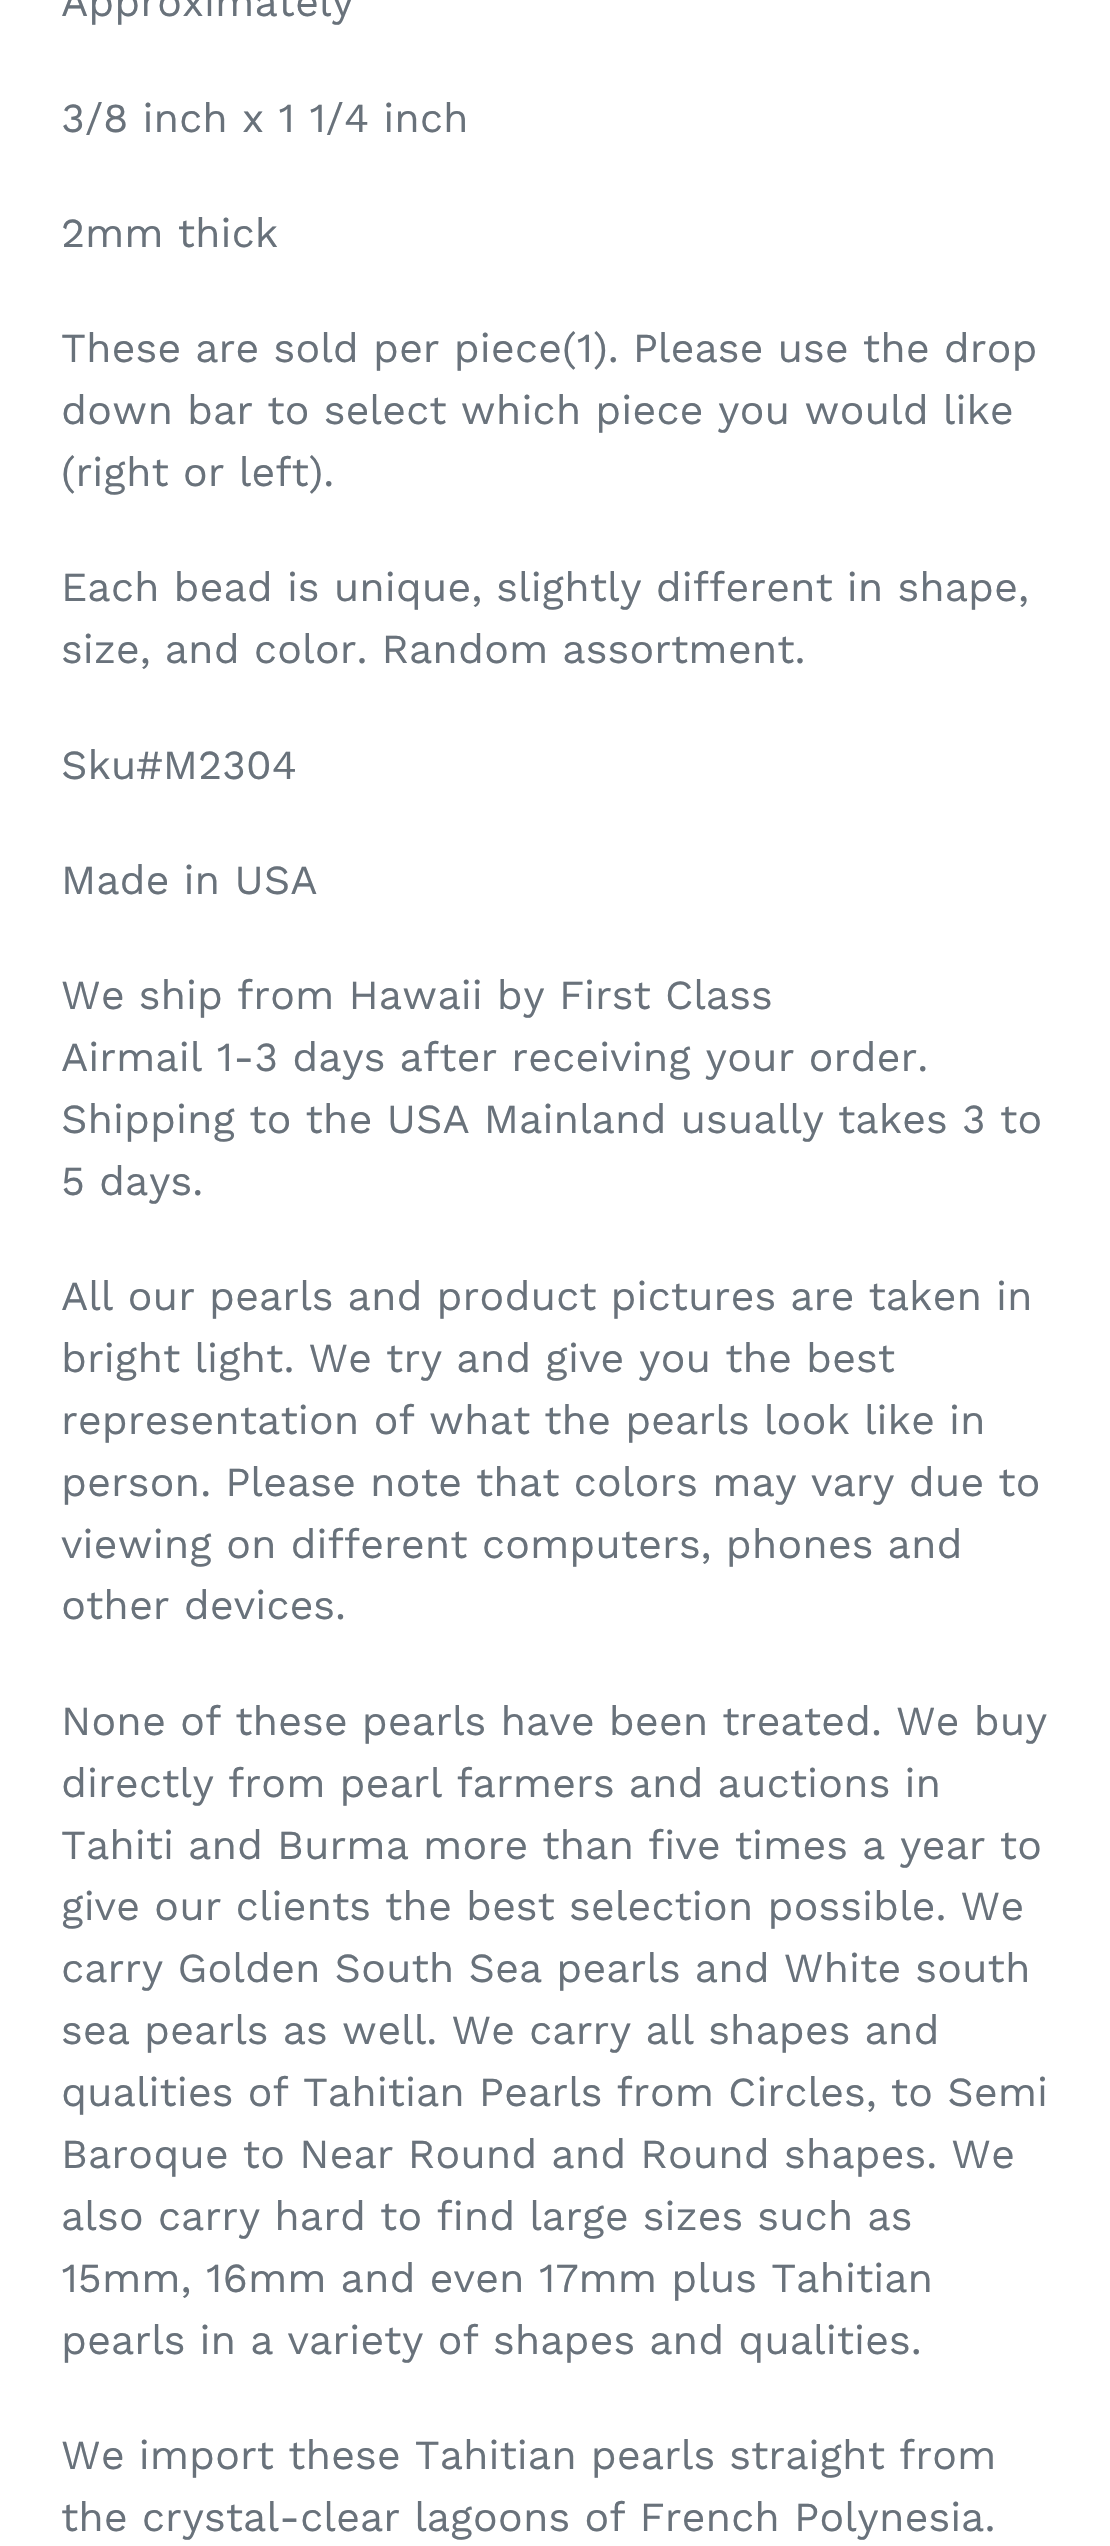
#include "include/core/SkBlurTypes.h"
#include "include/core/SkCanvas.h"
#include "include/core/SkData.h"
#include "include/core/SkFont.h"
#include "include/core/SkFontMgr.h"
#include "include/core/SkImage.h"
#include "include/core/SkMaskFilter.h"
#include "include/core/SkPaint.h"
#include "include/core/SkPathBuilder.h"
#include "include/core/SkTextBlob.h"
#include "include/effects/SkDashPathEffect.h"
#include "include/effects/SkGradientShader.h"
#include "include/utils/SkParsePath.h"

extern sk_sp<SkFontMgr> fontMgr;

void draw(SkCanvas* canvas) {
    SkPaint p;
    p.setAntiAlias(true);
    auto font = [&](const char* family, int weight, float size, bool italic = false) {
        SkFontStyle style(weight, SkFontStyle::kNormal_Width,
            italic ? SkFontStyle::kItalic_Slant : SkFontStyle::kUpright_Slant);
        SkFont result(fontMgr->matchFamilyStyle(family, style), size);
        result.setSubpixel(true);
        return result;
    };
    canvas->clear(0xFFFFFFFF);
    auto font1 = font("Work Sans", 400, 41.25f);
    p.setColor(0xFF69727B);
    {
        const struct { const char* s; float x, y; } items[] = {
            {"Approximately", 61, 16},
            {"3/8 inch x 1 1/4 inch", 61, 132},
            {"2mm thick", 61, 247},
            {"These are sold per piece(1). Please use the drop", 61, 362},
            {"down bar to select which piece you would like", 61, 424},
            {"(right or left).", 61, 486},
            {"Each bead is unique, slightly different in shape,", 61, 601},
            {"size, and color. Random assortment.", 61, 663},
            {"Sku#M2304", 61, 779},
            {"Made in USA", 61, 894},
            {"We ship from Hawaii by First Class", 61, 1009},
            {"Airmail 1-3 days after receiving your order.", 61, 1071},
            {"Shipping to the USA Mainland usually takes 3 to", 61, 1133},
            {"5 days.", 61, 1195},
            {"All our pearls and product pictures are taken in", 61, 1310},
            {"bright light. We try and give you the best", 61, 1372},
            {"representation of what the pearls look like in", 61, 1434},
            {"person. Please note that colors may vary due to", 61, 1496},
            {"viewing on different computers, phones and", 61, 1558},
            {"other devices.", 61, 1619},
            {"None of these pearls have been treated. We buy", 61, 1735},
            {"directly from pearl farmers and auctions in", 61, 1797},
            {"Tahiti and Burma more than five times a year to", 61, 1859},
            {"give our clients the best selection possible. We", 61, 1920},
            {"carry Golden South Sea pearls and White south", 61, 1982},
            {"sea pearls as well. We carry all shapes and", 61, 2044},
            {"qualities of Tahitian Pearls from Circles, to Semi", 61, 2106},
            {"Baroque to Near Round and Round shapes. We", 61, 2168},
            {"also carry hard to find large sizes such as", 61, 2230},
            {"15mm, 16mm and even 17mm plus Tahitian", 61, 2292},
            {"pearls in a variety of shapes and qualities.", 61, 2354},
            {"We import these Tahitian pearls straight from", 61, 2469},
            {"the crystal-clear lagoons of French Polynesia.", 61, 2531},
        };
        for (auto [s, x, y] : items) {
            canvas->drawString(s, x, y, font1, p);
        }
    }
}
